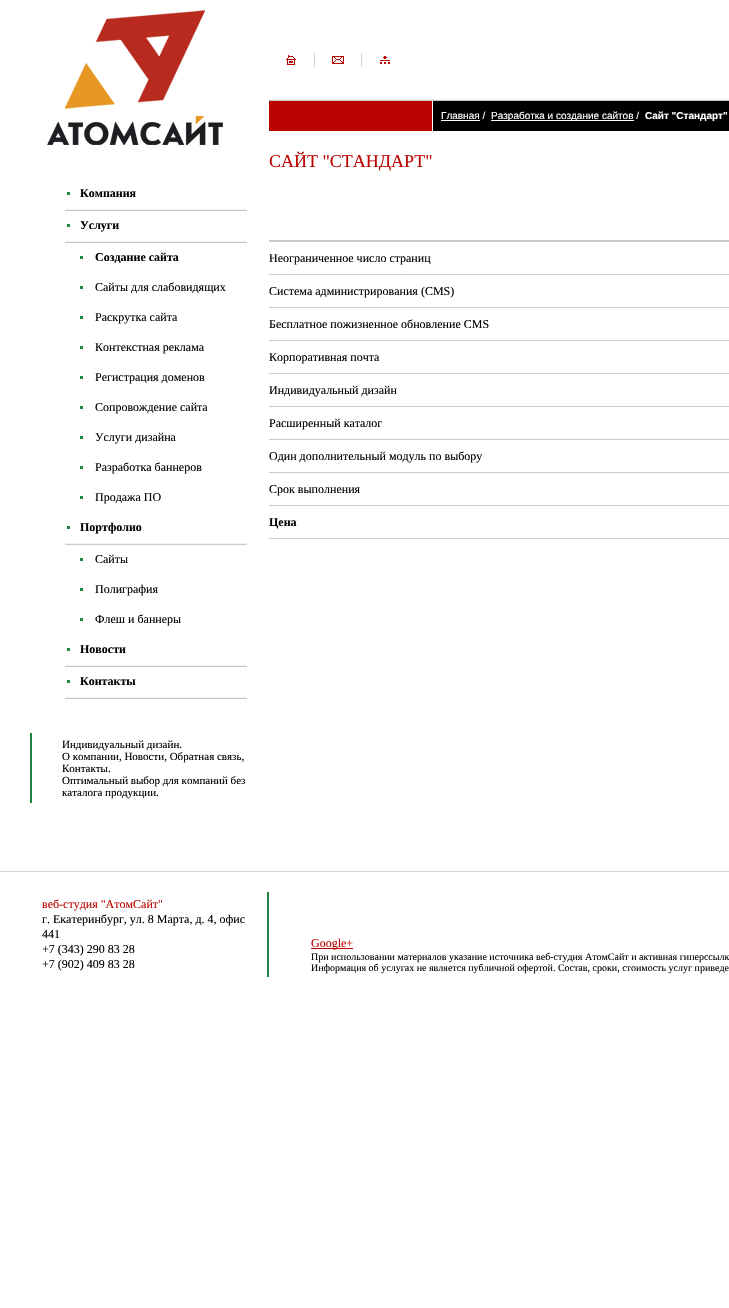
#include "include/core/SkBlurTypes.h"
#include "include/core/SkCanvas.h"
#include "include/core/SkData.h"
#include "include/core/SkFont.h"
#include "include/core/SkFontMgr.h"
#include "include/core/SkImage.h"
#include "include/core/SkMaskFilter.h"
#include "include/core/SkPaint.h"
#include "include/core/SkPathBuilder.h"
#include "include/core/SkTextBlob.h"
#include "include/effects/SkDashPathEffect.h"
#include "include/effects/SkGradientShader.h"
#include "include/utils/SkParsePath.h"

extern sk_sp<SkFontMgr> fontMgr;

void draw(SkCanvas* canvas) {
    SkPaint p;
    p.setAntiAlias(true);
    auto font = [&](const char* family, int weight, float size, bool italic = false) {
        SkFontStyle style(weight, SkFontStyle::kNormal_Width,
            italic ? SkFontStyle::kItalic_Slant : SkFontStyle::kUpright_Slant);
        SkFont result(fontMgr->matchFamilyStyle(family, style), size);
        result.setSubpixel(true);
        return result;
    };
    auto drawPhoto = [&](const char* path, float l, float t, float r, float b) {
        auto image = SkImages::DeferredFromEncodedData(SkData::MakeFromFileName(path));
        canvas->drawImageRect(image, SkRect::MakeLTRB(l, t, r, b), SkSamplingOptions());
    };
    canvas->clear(0xFFFFFFFF);
    drawPhoto("media/1.png", 47, 10, 223, 145);
    p.setColor(0xFF208447);
    canvas->drawRect(SkRect::MakeLTRB(67, 192, 70, 195), p);
    auto font1 = font("Liberation Serif", 700, 12);
    p.setColor(0xFF000000);
    canvas->drawString("Компания", 80, 197, font1, p);
    drawPhoto("media/2.png", 65, 209, 247, 211);
    p.setColor(0xFF208447);
    canvas->drawRect(SkRect::MakeLTRB(67, 224, 70, 227), p);
    p.setColor(0xFF000000);
    canvas->drawString("Услуги", 80, 229, font1, p);
    drawPhoto("media/2.png", 65, 241, 247, 243);
    p.setColor(0xFF208447);
    canvas->drawRect(SkRect::MakeLTRB(80, 256, 83, 259), p);
    p.setColor(0xFF000000);
    canvas->drawString("Создание сайта", 95, 261, font1, p);
    p.setColor(0xFF208447);
    canvas->drawRect(SkRect::MakeLTRB(80, 286, 83, 289), p);
    auto font2 = font("Liberation Serif", 400, 12);
    p.setColor(0xFF000000);
    canvas->drawString("Сайты для слабовидящих", 95, 291, font2, p);
    p.setColor(0xFF208447);
    canvas->drawRect(SkRect::MakeLTRB(80, 316, 83, 319), p);
    p.setColor(0xFF000000);
    canvas->drawString("Раскрутка сайта", 95, 321, font2, p);
    p.setColor(0xFF208447);
    canvas->drawRect(SkRect::MakeLTRB(80, 346, 83, 349), p);
    p.setColor(0xFF000000);
    canvas->drawString("Контекстная реклама", 95, 351, font2, p);
    p.setColor(0xFF208447);
    canvas->drawRect(SkRect::MakeLTRB(80, 376, 83, 379), p);
    p.setColor(0xFF000000);
    canvas->drawString("Регистрация доменов", 95, 381, font2, p);
    p.setColor(0xFF208447);
    canvas->drawRect(SkRect::MakeLTRB(80, 406, 83, 409), p);
    p.setColor(0xFF000000);
    canvas->drawString("Сопровождение сайта", 95, 411, font2, p);
    p.setColor(0xFF208447);
    canvas->drawRect(SkRect::MakeLTRB(80, 436, 83, 439), p);
    p.setColor(0xFF000000);
    canvas->drawString("Услуги дизайна", 95, 441, font2, p);
    p.setColor(0xFF208447);
    canvas->drawRect(SkRect::MakeLTRB(80, 466, 83, 469), p);
    p.setColor(0xFF000000);
    canvas->drawString("Разработка баннеров", 95, 471, font2, p);
    p.setColor(0xFF208447);
    canvas->drawRect(SkRect::MakeLTRB(80, 496, 83, 499), p);
    p.setColor(0xFF000000);
    canvas->drawString("Продажа ПО", 95, 501, font2, p);
    p.setColor(0xFF208447);
    canvas->drawRect(SkRect::MakeLTRB(67, 526, 70, 529), p);
    p.setColor(0xFF000000);
    canvas->drawString("Портфолио", 80, 531, font1, p);
    drawPhoto("media/2.png", 65, 543, 247, 545);
    p.setColor(0xFF208447);
    canvas->drawRect(SkRect::MakeLTRB(80, 558, 83, 561), p);
    p.setColor(0xFF000000);
    canvas->drawString("Сайты", 95, 563, font2, p);
    p.setColor(0xFF208447);
    canvas->drawRect(SkRect::MakeLTRB(80, 588, 83, 591), p);
    p.setColor(0xFF000000);
    canvas->drawString("Полиграфия", 95, 593, font2, p);
    p.setColor(0xFF208447);
    canvas->drawRect(SkRect::MakeLTRB(80, 618, 83, 621), p);
    p.setColor(0xFF000000);
    canvas->drawString("Флеш и баннеры", 95, 623, font2, p);
    p.setColor(0xFF208447);
    canvas->drawRect(SkRect::MakeLTRB(67, 648, 70, 651), p);
    p.setColor(0xFF000000);
    canvas->drawString("Новости", 80, 653, font1, p);
    drawPhoto("media/2.png", 65, 665, 247, 667);
    p.setColor(0xFF208447);
    canvas->drawRect(SkRect::MakeLTRB(67, 680, 70, 683), p);
    p.setColor(0xFF000000);
    canvas->drawString("Контакты", 80, 685, font1, p);
    drawPhoto("media/2.png", 65, 697, 247, 699);
    p.setColor(0xFF208447);
    canvas->drawRect(SkRect::MakeLTRB(30, 733, 32, 803), p);
    auto font3 = font("Liberation Serif", 400, 11);
    p.setColor(0xFF000000);
    {
        const struct { const char* s; float x, y; } items[] = {
            {"Индивидуальный дизайн.", 62, 748},
            {"О компании, Новости, Обратная связь,", 62, 760},
            {"Контакты.", 62, 772},
            {"Оптимальный выбор для компаний без", 62, 784},
            {"каталога продукции.", 62, 796},
        };
        for (auto [s, x, y] : items) {
            canvas->drawString(s, x, y, font3, p);
        }
    }
    drawPhoto("media/3.png", 286, 55, 296, 65);
    p.setColor(0xFFD2D2D2);
    canvas->drawRect(SkRect::MakeLTRB(314, 53, 315, 67), p);
    drawPhoto("media/4.png", 332, 56, 344, 64);
    canvas->drawRect(SkRect::MakeLTRB(361, 53, 362, 67), p);
    drawPhoto("media/5.png", 380, 56, 390, 64);
    p.setColor(0xFFBB0301);
    canvas->drawRect(SkRect::MakeLTRB(269, 101, 432, 131), p);
    drawPhoto("media/6.png", 269, 99, 432, 101);
    drawPhoto("media/7.png", 432, 99, 433, 101);
    p.setColor(0xFF000000);
    canvas->drawRect(SkRect::MakeLTRB(433, 101, 729, 131), p);
    drawPhoto("media/8.png", 433, 99, 729, 101);
    auto font4 = font("Liberation Sans", 400, 10);
    p.setColor(0xFFFFFFFF);
    canvas->drawString("Главная /", 441, 119, font4, p);
    canvas->drawRect(SkRect::MakeLTRB(441, 120, 480, 121), p);
    canvas->drawRect(SkRect::MakeLTRB(491, 120, 634, 121), p);
    canvas->drawString("Разработка и создание сайтов /", 491, 119, font4, p);
    auto font5 = font("Liberation Sans", 700, 10);
    canvas->drawString("Сайт \"Стандарт\"", 645, 119, font5, p);
    auto font6 = font("Liberation Serif", 400, 18);
    p.setColor(0xFFBB0301);
    canvas->drawString("САЙТ \"СТАНДАРТ\"", 269, 167, font6, p);
    p.setColor(0xFFC9C9C9);
    canvas->drawRect(SkRect::MakeLTRB(269, 240, 729, 242), p);
    canvas->drawRect(SkRect::MakeLTRB(269, 274, 729, 275), p);
    p.setColor(0xFF000000);
    canvas->drawString("Неограниченное число страниц", 269, 262, font2, p);
    p.setColor(0xFFC9C9C9);
    canvas->drawRect(SkRect::MakeLTRB(269, 307, 729, 308), p);
    p.setColor(0xFF000000);
    canvas->drawString("Система администрирования (CMS)", 269, 295, font2, p);
    p.setColor(0xFFC9C9C9);
    canvas->drawRect(SkRect::MakeLTRB(269, 340, 729, 341), p);
    p.setColor(0xFF000000);
    canvas->drawString("Бесплатное пожизненное обновление CMS", 269, 328, font2, p);
    p.setColor(0xFFC9C9C9);
    canvas->drawRect(SkRect::MakeLTRB(269, 373, 729, 374), p);
    p.setColor(0xFF000000);
    canvas->drawString("Корпоративная почта", 269, 361, font2, p);
    p.setColor(0xFFC9C9C9);
    canvas->drawRect(SkRect::MakeLTRB(269, 406, 729, 407), p);
    p.setColor(0xFF000000);
    canvas->drawString("Индивидуальный дизайн", 269, 394, font2, p);
    p.setColor(0xFFC9C9C9);
    canvas->drawRect(SkRect::MakeLTRB(269, 439, 729, 440), p);
    p.setColor(0xFF000000);
    canvas->drawString("Расширенный каталог", 269, 427, font2, p);
    p.setColor(0xFFC9C9C9);
    canvas->drawRect(SkRect::MakeLTRB(269, 472, 729, 473), p);
    p.setColor(0xFF000000);
    canvas->drawString("Один дополнительный модуль по выбору", 269, 460, font2, p);
    p.setColor(0xFFC9C9C9);
    canvas->drawRect(SkRect::MakeLTRB(269, 505, 729, 506), p);
    p.setColor(0xFF000000);
    canvas->drawString("Срок выполнения", 269, 493, font2, p);
    p.setColor(0xFFC9C9C9);
    canvas->drawRect(SkRect::MakeLTRB(269, 538, 729, 539), p);
    p.setColor(0xFF000000);
    canvas->drawString("Цена", 269, 526, font1, p);
    p.setColor(0xFFD2D2D2);
    canvas->drawRect(SkRect::MakeLTRB(0, 871, 729, 872), p);
    p.setColor(0xFF208447);
    canvas->drawRect(SkRect::MakeLTRB(267, 892, 269, 977), p);
    p.setColor(0xFFBB0301);
    canvas->drawString("веб-студия \"АтомСайт\"", 42, 908, font2, p);
    p.setColor(0xFF000000);
    {
        const struct { const char* s; float x, y; } items[] = {
            {"г. Екатеринбург, ул. 8 Марта, д. 4, офис", 42, 923},
            {"441", 42, 938},
            {"+7 (343) 290 83 28", 42, 953},
            {"+7 (902) 409 83 28", 42, 968},
        };
        for (auto [s, x, y] : items) {
            canvas->drawString(s, x, y, font2, p);
        }
    }
    p.setColor(0xFFBB0301);
    canvas->drawRect(SkRect::MakeLTRB(311, 948, 353, 949), p);
    canvas->drawString("Google+", 311, 947, font2, p);
    auto font7 = font("Liberation Serif", 400, 10);
    p.setColor(0xFF000000);
    canvas->drawString("При использовании материалов указание источника веб-студия АтомСайт и активная гиперссылк", 311, 960, font7, p);
    canvas->drawString("Информация об услугах не является публичной офертой. Состав, сроки, стоимость услуг приведе", 311, 971, font7, p);
}
